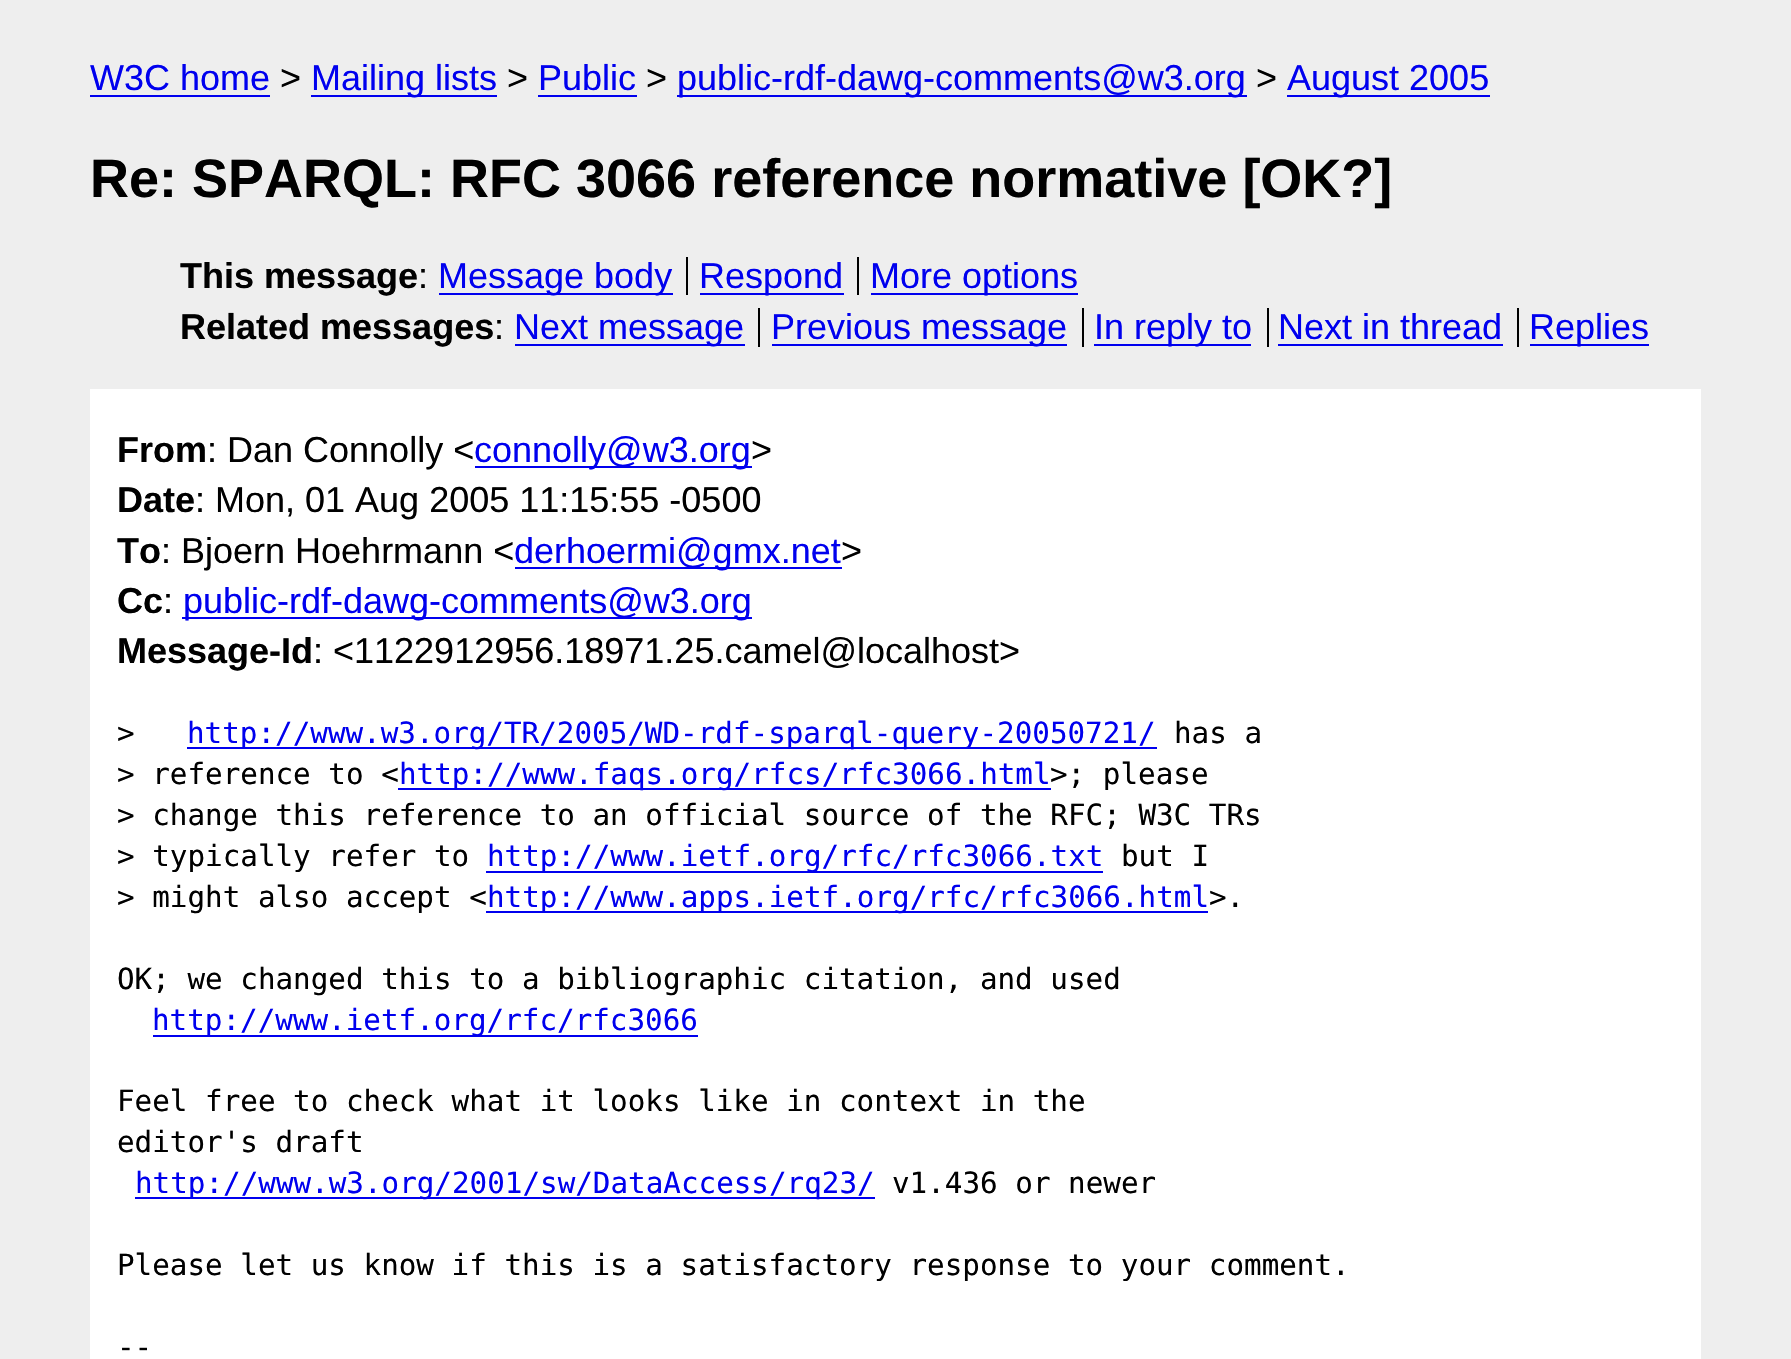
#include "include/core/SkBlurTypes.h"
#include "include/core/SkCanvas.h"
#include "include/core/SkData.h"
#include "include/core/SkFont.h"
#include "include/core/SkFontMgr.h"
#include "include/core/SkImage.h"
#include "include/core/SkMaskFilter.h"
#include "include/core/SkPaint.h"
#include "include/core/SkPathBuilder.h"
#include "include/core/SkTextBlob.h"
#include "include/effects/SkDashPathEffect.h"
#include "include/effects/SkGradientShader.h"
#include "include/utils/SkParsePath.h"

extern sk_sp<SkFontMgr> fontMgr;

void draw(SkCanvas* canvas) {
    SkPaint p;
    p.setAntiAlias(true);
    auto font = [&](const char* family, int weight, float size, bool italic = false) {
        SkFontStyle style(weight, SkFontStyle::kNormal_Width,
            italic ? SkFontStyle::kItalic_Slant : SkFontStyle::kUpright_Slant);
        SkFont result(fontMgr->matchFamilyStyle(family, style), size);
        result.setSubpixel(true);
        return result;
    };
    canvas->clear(0xFFEEEEEE);
    auto font1 = font("Liberation Sans", 400, 36);
    p.setColor(0xFF0000EE);
    canvas->drawString("W3C home", 90, 90, font1, p);
    canvas->drawRect(SkRect::MakeLTRB(90, 95, 270, 97), p);
    p.setColor(0xFF000000);
    canvas->drawString(">", 280, 90, font1, p);
    p.setColor(0xFF0000EE);
    canvas->drawRect(SkRect::MakeLTRB(311, 95, 497, 97), p);
    canvas->drawString("Mailing lists", 311, 90, font1, p);
    p.setColor(0xFF000000);
    canvas->drawString(">", 507, 90, font1, p);
    p.setColor(0xFF0000EE);
    canvas->drawString("Public", 538, 90, font1, p);
    canvas->drawRect(SkRect::MakeLTRB(538, 95, 637, 97), p);
    p.setColor(0xFF000000);
    canvas->drawString(">", 646, 90, font1, p);
    p.setColor(0xFF0000EE);
    canvas->drawRect(SkRect::MakeLTRB(677, 95, 1247, 97), p);
    canvas->drawString("public-rdf-dawg-comments@w3.org", 677, 90, font1, p);
    p.setColor(0xFF000000);
    canvas->drawString(">", 1256, 90, font1, p);
    p.setColor(0xFF0000EE);
    canvas->drawRect(SkRect::MakeLTRB(1287, 95, 1490, 97), p);
    canvas->drawString("August 2005", 1287, 90, font1, p);
    auto font2 = font("Liberation Sans", 700, 54);
    p.setColor(0xFF000000);
    canvas->drawString("Re: SPARQL: RFC 3066 reference normative [OK?]", 90, 197, font2, p);
    auto font3 = font("Liberation Sans", 700, 36);
    canvas->drawString("This message", 180, 288, font3, p);
    canvas->drawString(":", 418, 288, font1, p);
    p.setColor(0xFF0000EE);
    canvas->drawRect(SkRect::MakeLTRB(439, 293, 673, 295), p);
    canvas->drawString("Message body", 438, 288, font1, p);
    p.setColor(0xFF000000);
    canvas->drawRect(SkRect::MakeLTRB(686, 257, 688, 295), p);
    p.setColor(0xFF0000EE);
    canvas->drawRect(SkRect::MakeLTRB(700, 293, 844, 295), p);
    canvas->drawString("Respond", 699, 288, font1, p);
    canvas->drawRect(SkRect::MakeLTRB(871, 293, 1078, 295), p);
    canvas->drawString("More options", 870, 288, font1, p);
    p.setColor(0xFF000000);
    canvas->drawRect(SkRect::MakeLTRB(857, 257, 859, 295), p);
    canvas->drawString("Related messages", 180, 339, font3, p);
    canvas->drawString(":", 494, 339, font1, p);
    p.setColor(0xFF0000EE);
    canvas->drawRect(SkRect::MakeLTRB(515, 344, 745, 346), p);
    canvas->drawString("Next message", 514, 339, font1, p);
    canvas->drawRect(SkRect::MakeLTRB(772, 344, 1067, 346), p);
    canvas->drawString("Previous message", 771, 339, font1, p);
    p.setColor(0xFF000000);
    canvas->drawRect(SkRect::MakeLTRB(758, 308, 760, 347), p);
    p.setColor(0xFF0000EE);
    canvas->drawRect(SkRect::MakeLTRB(1094, 344, 1251, 346), p);
    canvas->drawString("In reply to", 1094, 339, font1, p);
    p.setColor(0xFF000000);
    canvas->drawRect(SkRect::MakeLTRB(1082, 308, 1084, 347), p);
    p.setColor(0xFF0000EE);
    canvas->drawString("Next in thread", 1278, 339, font1, p);
    {
        const struct { float l, t, r, b; SkColor color; } items[] = {
            {1267, 308, 1269, 347, 0xFF000000},
            {1278, 344, 1503, 346, 0xFF0000EE},
            {1530, 344, 1649, 346, 0xFF0000EE},
        };
        for (auto [l, t, r, b, color] : items) {
            p.setColor(color);
            canvas->drawRect(SkRect::MakeLTRB(l, t, r, b), p);
        }
    }
    canvas->drawString("Replies", 1529, 339, font1, p);
    p.setColor(0xFF000000);
    canvas->drawRect(SkRect::MakeLTRB(1517, 308, 1519, 347), p);
    p.setColor(0xFFFFFFFF);
    canvas->drawRect(SkRect::MakeLTRB(90, 389, 1701, 1359), p);
    p.setColor(0xFF000000);
    canvas->drawString("From", 117, 462, font3, p);
    canvas->drawString(": Dan Connolly <", 207, 462, font1, p);
    p.setColor(0xFF0000EE);
    canvas->drawRect(SkRect::MakeLTRB(475, 466, 752, 468), p);
    canvas->drawString("connolly@w3.org", 474, 462, font1, p);
    p.setColor(0xFF000000);
    canvas->drawString(">", 751, 462, font1, p);
    canvas->drawString("Date", 117, 512, font3, p);
    canvas->drawString(": Mon, 01 Aug 2005 11:15:55 -0500", 195, 512, font1, p);
    canvas->drawString("To", 117, 563, font3, p);
    canvas->drawString(": Bjoern Hoehrmann <", 161, 563, font1, p);
    p.setColor(0xFF0000EE);
    canvas->drawRect(SkRect::MakeLTRB(515, 567, 842, 569), p);
    canvas->drawString("derhoermi@gmx.net", 514, 563, font1, p);
    p.setColor(0xFF000000);
    canvas->drawString(">", 841, 563, font1, p);
    canvas->drawString("Cc", 117, 613, font3, p);
    canvas->drawString(":", 163, 613, font1, p);
    p.setColor(0xFF0000EE);
    canvas->drawRect(SkRect::MakeLTRB(182, 617, 752, 619), p);
    canvas->drawString("public-rdf-dawg-comments@w3.org", 183, 613, font1, p);
    p.setColor(0xFF000000);
    canvas->drawString("Message-Id", 117, 663, font3, p);
    canvas->drawString(": <1122912956.18971.25.camel@localhost>", 313, 663, font1, p);
    auto font4 = font("DejaVu Sans Mono", 400, 29.25f);
    canvas->drawString(">", 117, 743, font4, p);
    p.setColor(0xFF0000EE);
    canvas->drawRect(SkRect::MakeLTRB(187, 747, 1157, 749), p);
    canvas->drawString("http://www.w3.org/TR/2005/WD-rdf-sparql-query-20050721/", 187, 743, font4, p);
    p.setColor(0xFF000000);
    canvas->drawString("has a", 1174, 743, font4, p);
    canvas->drawString("> reference to <", 117, 784, font4, p);
    p.setColor(0xFF0000EE);
    canvas->drawRect(SkRect::MakeLTRB(398, 788, 1051, 790), p);
    canvas->drawString("http://www.faqs.org/rfcs/rfc3066.html", 399, 784, font4, p);
    p.setColor(0xFF000000);
    {
        const struct { const char* s; float x, y; } items[] = {
            {">; please", 1050, 784},
            {"> change this reference to an official source of the RFC; W3C TRs", 117, 825},
            {"> typically refer to", 117, 866},
        };
        for (auto [s, x, y] : items) {
            canvas->drawString(s, x, y, font4, p);
        }
    }
    p.setColor(0xFF0000EE);
    canvas->drawRect(SkRect::MakeLTRB(486, 871, 1103, 873), p);
    canvas->drawString("http://www.ietf.org/rfc/rfc3066.txt", 487, 866, font4, p);
    p.setColor(0xFF000000);
    canvas->drawString("but I", 1121, 866, font4, p);
    canvas->drawString("> might also accept <", 117, 907, font4, p);
    p.setColor(0xFF0000EE);
    canvas->drawRect(SkRect::MakeLTRB(486, 911, 1208, 913), p);
    canvas->drawString("http://www.apps.ietf.org/rfc/rfc3066.html", 487, 907, font4, p);
    p.setColor(0xFF000000);
    canvas->drawString(">.", 1209, 907, font4, p);
    canvas->drawString("OK; we changed this to a bibliographic citation, and used", 117, 989, font4, p);
    p.setColor(0xFF0000EE);
    canvas->drawRect(SkRect::MakeLTRB(153, 1035, 698, 1037), p);
    canvas->drawString("http://www.ietf.org/rfc/rfc3066", 152, 1030, font4, p);
    p.setColor(0xFF000000);
    canvas->drawString("Feel free to check what it looks like in context in the", 117, 1111, font4, p);
    canvas->drawString("editor's draft", 117, 1152, font4, p);
    p.setColor(0xFF0000EE);
    canvas->drawRect(SkRect::MakeLTRB(135, 1197, 875, 1199), p);
    canvas->drawString("http://www.w3.org/2001/sw/DataAccess/rq23/", 135, 1193, font4, p);
    p.setColor(0xFF000000);
    {
        const struct { const char* s; float x, y; } items[] = {
            {"v1.436 or newer", 892, 1193},
            {"Please let us know if this is a satisfactory response to your comment.", 117, 1275},
            {"--", 117, 1357},
        };
        for (auto [s, x, y] : items) {
            canvas->drawString(s, x, y, font4, p);
        }
    }
}
